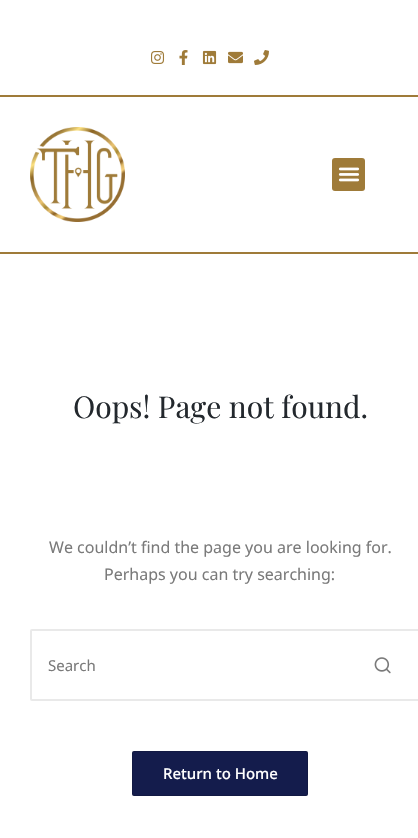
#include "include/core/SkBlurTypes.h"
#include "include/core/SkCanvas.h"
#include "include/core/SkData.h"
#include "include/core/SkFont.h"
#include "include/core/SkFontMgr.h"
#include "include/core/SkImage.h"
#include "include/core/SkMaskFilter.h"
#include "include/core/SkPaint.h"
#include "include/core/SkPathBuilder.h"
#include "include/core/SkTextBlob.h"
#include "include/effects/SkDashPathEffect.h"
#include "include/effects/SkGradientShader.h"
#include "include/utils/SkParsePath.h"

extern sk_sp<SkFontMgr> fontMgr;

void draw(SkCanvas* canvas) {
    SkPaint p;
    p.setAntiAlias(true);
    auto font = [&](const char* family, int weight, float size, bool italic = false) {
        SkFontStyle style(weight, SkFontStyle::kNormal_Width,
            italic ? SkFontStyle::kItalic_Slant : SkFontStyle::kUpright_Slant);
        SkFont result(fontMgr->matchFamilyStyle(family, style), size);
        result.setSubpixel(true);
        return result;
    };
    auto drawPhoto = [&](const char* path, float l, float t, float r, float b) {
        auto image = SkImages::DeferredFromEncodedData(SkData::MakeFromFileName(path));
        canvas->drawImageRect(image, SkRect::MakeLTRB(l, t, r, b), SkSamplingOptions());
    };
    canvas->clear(0xFFFFFFFF);
    drawPhoto("media/1.png", 151, 51, 165, 64);
    drawPhoto("media/2.png", 179, 50, 188, 65);
    drawPhoto("media/3.png", 202, 50, 217, 65);
    drawPhoto("media/4.png", 228, 51, 243, 64);
    drawPhoto("media/5.png", 254, 50, 269, 65);
    p.setColor(0xFF9F7B39);
    canvas->drawRect(SkRect::MakeLTRB(0, 95, 418, 97), p);
    canvas->drawRect(SkRect::MakeLTRB(0, 252, 418, 254), p);
    drawPhoto("media/6.png", 30, 127, 125, 222);
    canvas->drawRoundRect(SkRect::MakeLTRB(332, 158, 365, 191), 3, 3, p);
    drawPhoto("media/7.png", 338, 167, 360, 182);
    auto font1 = font("Playfair Display", 400, 30);
    p.setColor(0xFF23282D);
    canvas->drawString("Oops! Page not found.", 73, 418, font1, p);
    auto font2 = font("Noto Sans", 400, 16);
    p.setColor(0xFF7A7A7A);
    canvas->drawString("We couldn’t find the page you are looking for.", 49, 553, font2, p);
    canvas->drawString("Perhaps you can try searching:", 104, 580, font2, p);
    p.setStyle(SkPaint::kStroke_Style);
    p.setStrokeWidth(2);
    p.setColor(0xFFE9E9E9);
    canvas->drawRoundRect(SkRect::MakeLTRB(31, 630, 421, 700), 1, 1, p);
    auto font3 = font("Noto Sans", 400, 15);
    p.setStyle(SkPaint::kFill_Style);
    p.setColor(0xFF7A7A7A);
    canvas->drawString("Search", 48, 671, font3, p);
    drawPhoto("media/8.png", 374, 657, 391, 674);
    p.setColor(0xFF141C4C);
    canvas->drawRoundRect(SkRect::MakeLTRB(132, 751, 308, 796), 2, 2, p);
    p.setStyle(SkPaint::kStroke_Style);
    p.setStrokeWidth(1);
    p.setColor(0x1F000000);
    canvas->drawRoundRect(SkRect::MakeLTRB(132.5f, 751.5f, 307.5f, 795.5f), 1.5f, 1.5f, p);
    auto font4 = font("Noto Sans", 500, 15);
    p.setStyle(SkPaint::kFill_Style);
    p.setColor(0xFFFFFFFF);
    canvas->drawString("Return to Home", 163, 779, font4, p);
}
